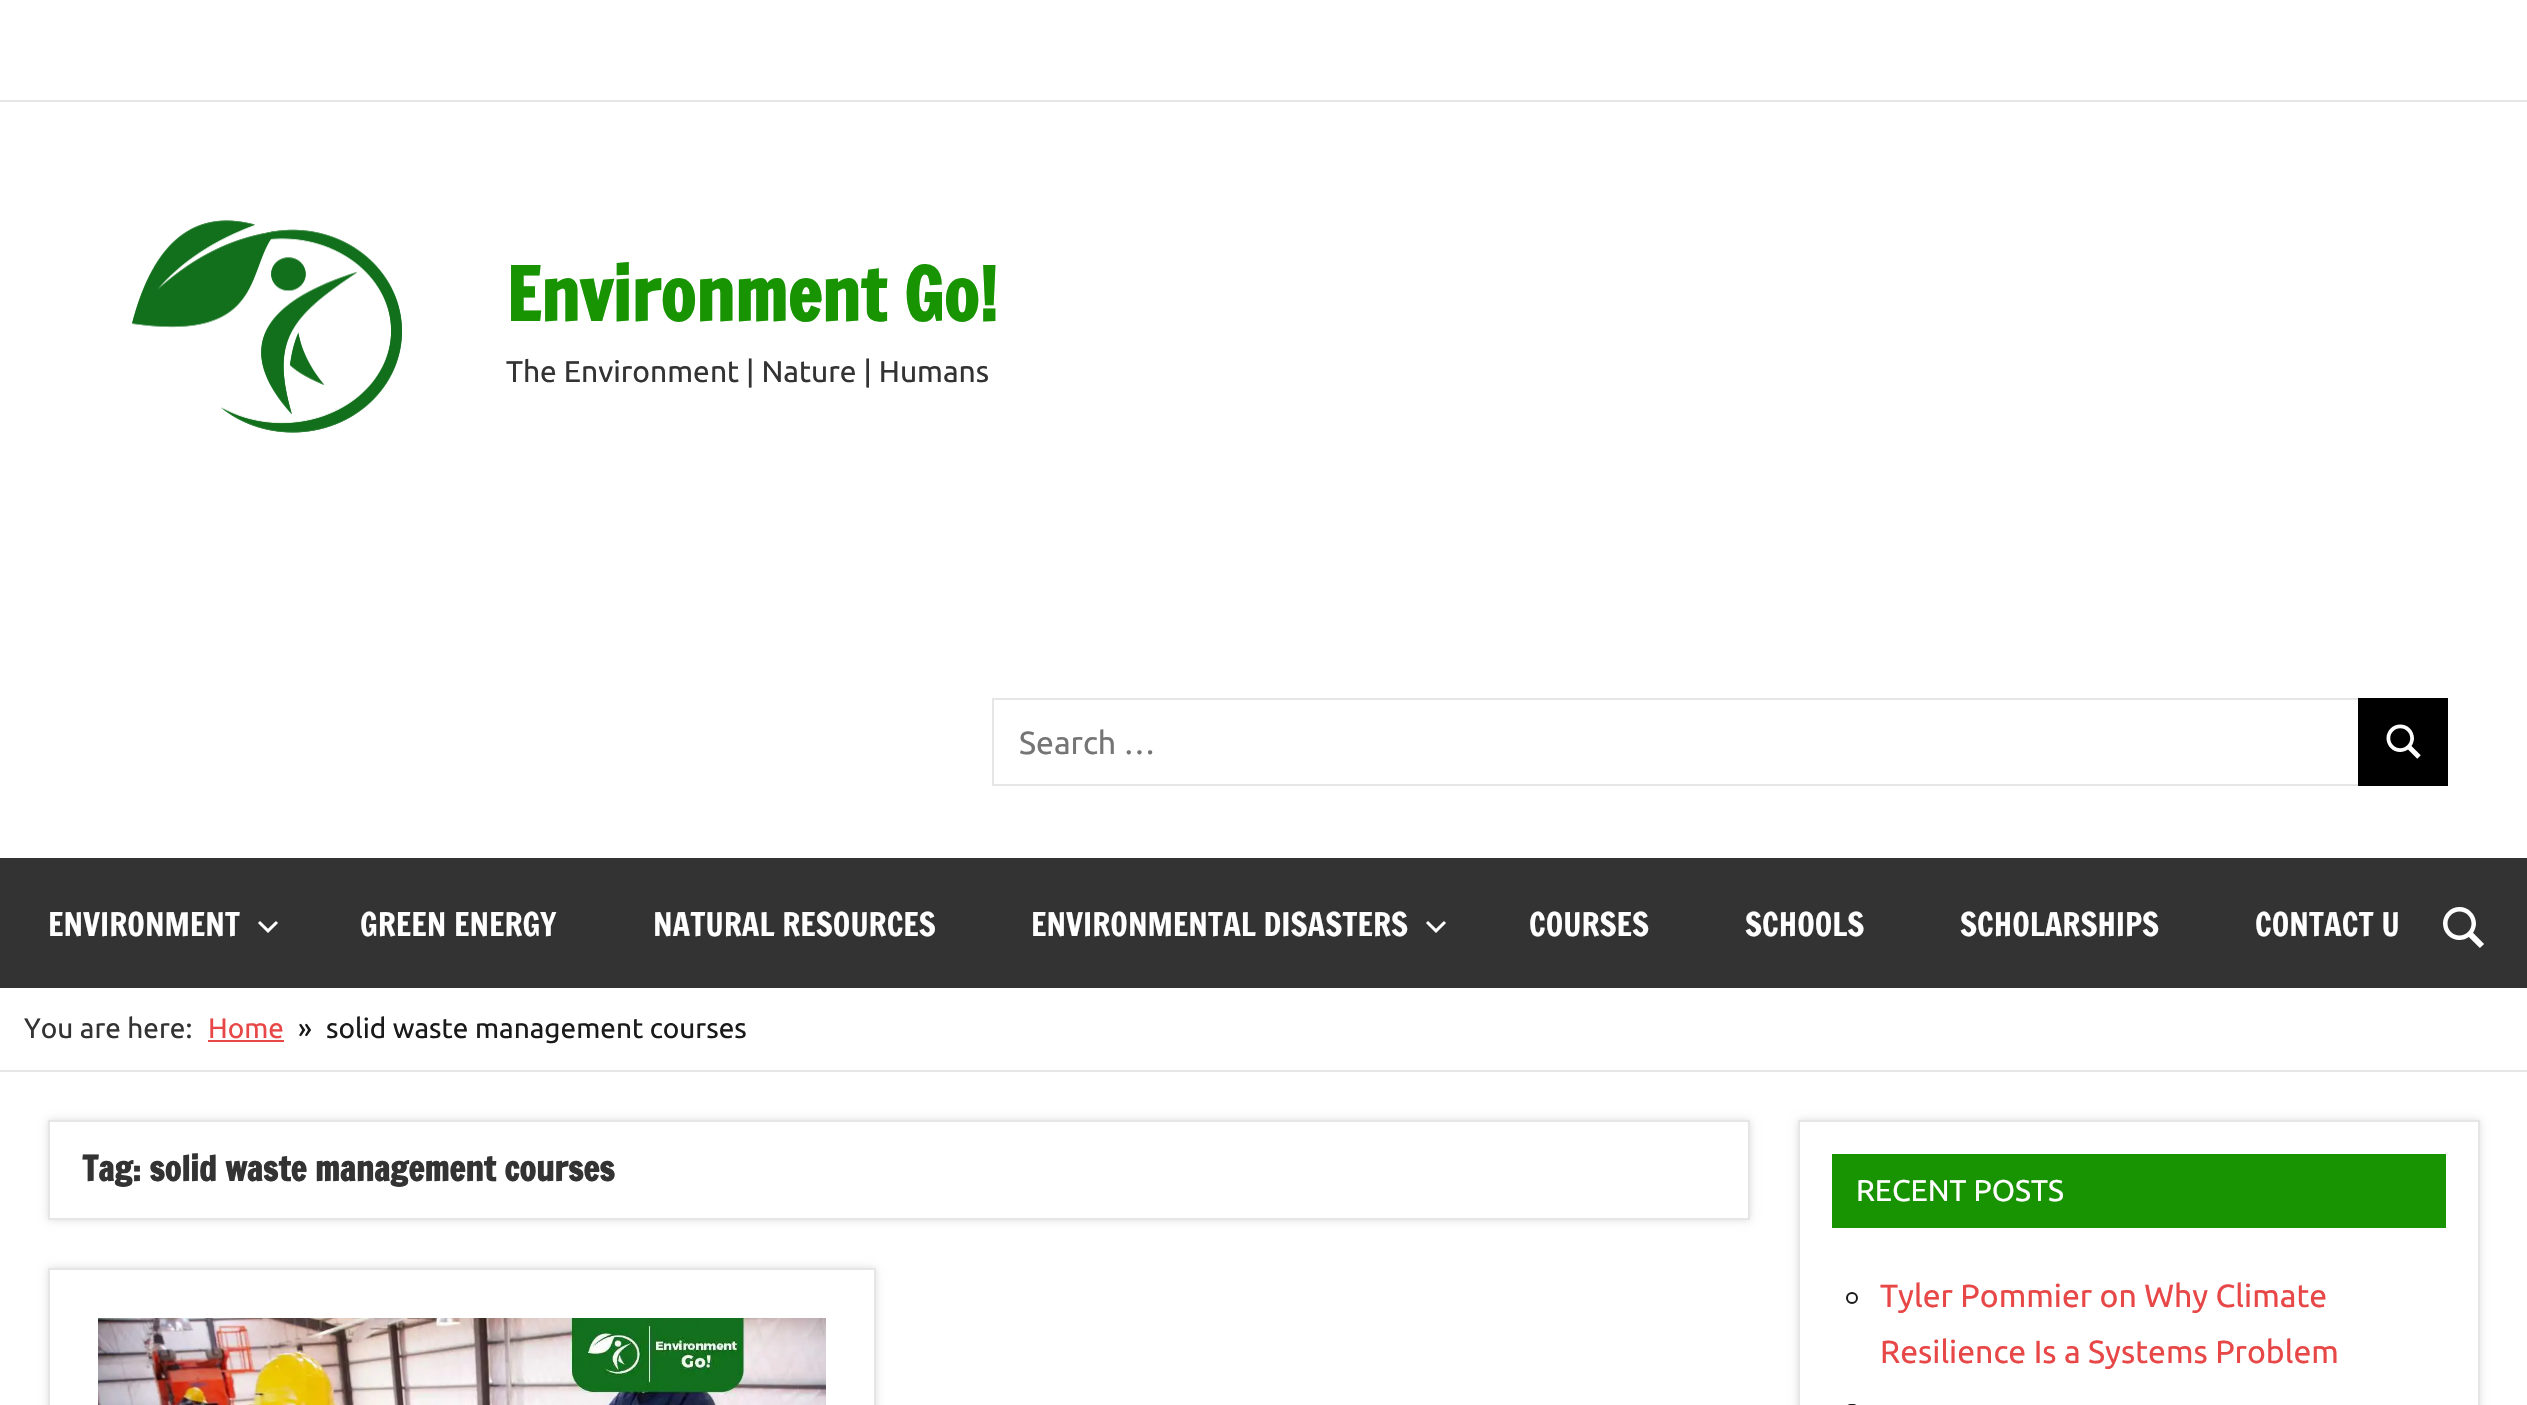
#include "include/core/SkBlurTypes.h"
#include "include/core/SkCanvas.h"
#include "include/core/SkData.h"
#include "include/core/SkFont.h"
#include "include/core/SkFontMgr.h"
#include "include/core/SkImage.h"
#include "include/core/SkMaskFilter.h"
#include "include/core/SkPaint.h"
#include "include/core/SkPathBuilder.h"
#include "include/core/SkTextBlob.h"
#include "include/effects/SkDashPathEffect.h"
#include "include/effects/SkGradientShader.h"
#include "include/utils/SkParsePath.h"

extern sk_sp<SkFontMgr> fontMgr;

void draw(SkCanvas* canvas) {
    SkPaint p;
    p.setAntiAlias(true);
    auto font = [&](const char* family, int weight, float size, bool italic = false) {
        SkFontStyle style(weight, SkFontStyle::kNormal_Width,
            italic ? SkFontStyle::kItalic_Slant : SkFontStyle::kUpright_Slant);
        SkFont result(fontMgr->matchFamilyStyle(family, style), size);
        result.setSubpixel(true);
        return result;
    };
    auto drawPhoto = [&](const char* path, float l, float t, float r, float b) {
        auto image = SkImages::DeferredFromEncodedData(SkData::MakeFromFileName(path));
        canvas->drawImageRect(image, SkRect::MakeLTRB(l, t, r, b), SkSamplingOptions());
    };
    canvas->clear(0xFFFFFFFF);
    p.setColor(0xFFE6E6E6);
    canvas->drawRect(SkRect::MakeLTRB(0, 100, 2527, 102), p);
    drawPhoto("media/1.png", 132, 220, 402, 433);
    auto font1 = font("Francois One", 700, 72);
    p.setColor(0xFF189302);
    canvas->drawString("Environment Go!", 506, 321, font1, p);
    auto font2 = font("Ubuntu", 400, 30);
    p.setColor(0xFF333333);
    canvas->drawString("The Environment | Nature | Humans", 506, 382, font2, p);
    p.setStyle(SkPaint::kStroke_Style);
    p.setStrokeWidth(2);
    p.setColor(0xFFE6E6E6);
    canvas->drawRect(SkRect::MakeLTRB(993, 699, 2359, 785), p);
    auto font3 = font("Ubuntu", 400, 32);
    p.setStyle(SkPaint::kFill_Style);
    p.setColor(0xFF757575);
    canvas->drawString("Search …", 1019, 754, font3, p);
    p.setColor(0xFF000000);
    canvas->drawRect(SkRect::MakeLTRB(2358, 698, 2448, 786), p);
    drawPhoto("media/2.png", 2386, 724, 2421, 759);
    p.setColor(0xFF333333);
    canvas->drawRect(SkRect::MakeLTRB(0, 858, 2527, 988), p);
    auto font4 = font("Francois One", 400, 32);
    p.setColor(0xFFFFFFFF);
    canvas->drawString("ENVIRONMENT", 48, 936, font4, p);
    drawPhoto("media/3.png", 258, 921, 278, 933);
    {
        const struct { const char* s; float x, y; } items[] = {
            {"GREEN ENERGY", 360, 936},
            {"NATURAL RESOURCES", 653, 936},
            {"ENVIRONMENTAL DISASTERS", 1031, 936},
        };
        for (auto [s, x, y] : items) {
            canvas->drawString(s, x, y, font4, p);
        }
    }
    drawPhoto("media/3.png", 1426, 921, 1446, 933);
    {
        const struct { const char* s; float x, y; } items[] = {
            {"COURSES", 1529, 936},
            {"SCHOOLS", 1745, 936},
            {"SCHOLARSHIPS", 1960, 936},
            {"CONTACT U", 2255, 936},
        };
        for (auto [s, x, y] : items) {
            canvas->drawString(s, x, y, font4, p);
        }
    }
    drawPhoto("media/4.png", 2443, 907, 2484, 948);
    p.setColor(0xFFE6E6E6);
    canvas->drawRect(SkRect::MakeLTRB(0, 1070, 2527, 1072), p);
    auto font5 = font("Ubuntu", 400, 28);
    p.setColor(0xFF333333);
    canvas->drawString("You are here:", 24, 1038, font5, p);
    p.setColor(0xFFE84747);
    canvas->drawString("Home", 208, 1038, font5, p);
    canvas->drawRect(SkRect::MakeLTRB(208, 1040, 284, 1042), p);
    p.setColor(0xFF1A1A1A);
    canvas->drawString("»", 298, 1038, font5, p);
    canvas->drawString("solid waste management courses", 326, 1038, font5, p);
    canvas->save();
    canvas->clipPath(SkPathBuilder(SkPathFillType::kEvenOdd).moveTo(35, 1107).lineTo(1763, 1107).lineTo(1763, 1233).lineTo(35, 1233).close().moveTo(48, 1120).lineTo(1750, 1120).lineTo(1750, 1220).lineTo(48, 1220).close().detach(), true);
    p.setColor(0xFFDDDDDD);
    p.setMaskFilter(SkMaskFilter::MakeBlur(kNormal_SkBlurStyle, 4));
    canvas->drawRect(SkRect::MakeLTRB(48, 1120, 1750, 1220), p);
    p.setMaskFilter(nullptr);
    canvas->restore();
    p.setStyle(SkPaint::kStroke_Style);
    p.setColor(0xFFE6E6E6);
    canvas->drawRect(SkRect::MakeLTRB(49, 1121, 1749, 1219), p);
    auto font6 = font("Francois One", 700, 34);
    p.setStyle(SkPaint::kFill_Style);
    p.setColor(0xFF333333);
    canvas->drawString("Tag: solid waste management courses", 82, 1181, font6, p);
    canvas->save();
    canvas->clipPath(SkPathBuilder(SkPathFillType::kEvenOdd).moveTo(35, 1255).lineTo(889, 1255).lineTo(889, 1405).lineTo(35, 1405).close().moveTo(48, 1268).lineTo(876, 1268).lineTo(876, 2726).lineTo(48, 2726).close().detach(), true);
    p.setColor(0xFFDDDDDD);
    p.setMaskFilter(SkMaskFilter::MakeBlur(kNormal_SkBlurStyle, 4));
    canvas->drawRect(SkRect::MakeLTRB(48, 1268, 876, 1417), p);
    p.setMaskFilter(nullptr);
    canvas->restore();
    p.setStyle(SkPaint::kStroke_Style);
    p.setColor(0xFFE6E6E6);
    canvas->drawRect(SkRect::MakeLTRB(49, 1269, 875, 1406), p);
    drawPhoto("media/5.png", 98, 1318, 826, 1405);
    canvas->save();
    canvas->clipPath(SkPathBuilder(SkPathFillType::kEvenOdd).moveTo(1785, 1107).lineTo(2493, 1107).lineTo(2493, 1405).lineTo(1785, 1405).close().moveTo(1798, 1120).lineTo(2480, 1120).lineTo(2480, 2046).lineTo(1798, 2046).close().detach(), true);
    p.setStyle(SkPaint::kFill_Style);
    p.setColor(0xFFDDDDDD);
    p.setMaskFilter(SkMaskFilter::MakeBlur(kNormal_SkBlurStyle, 4));
    canvas->drawRect(SkRect::MakeLTRB(1798, 1120, 2480, 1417), p);
    p.setMaskFilter(nullptr);
    canvas->restore();
    p.setStyle(SkPaint::kStroke_Style);
    p.setColor(0xFFE6E6E6);
    canvas->drawRect(SkRect::MakeLTRB(1799, 1121, 2479, 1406), p);
    p.setStyle(SkPaint::kFill_Style);
    p.setColor(0xFF189302);
    canvas->drawRect(SkRect::MakeLTRB(1832, 1154, 2446, 1228), p);
    p.setColor(0xFFFFFFFF);
    canvas->drawString("RECENT POSTS", 1856, 1201, font2, p);
    p.setStyle(SkPaint::kStroke_Style);
    p.setColor(0xFF1A1A1A);
    canvas->drawCircle(1852, 1298, 5, p);
    p.setStyle(SkPaint::kFill_Style);
    p.setColor(0xFFE84747);
    canvas->drawString("Tyler Pommier on Why Climate", 1880, 1307, font3, p);
    canvas->drawString("Resilience Is a Systems Problem", 1880, 1363, font3, p);
    p.setStyle(SkPaint::kStroke_Style);
    p.setColor(0xFF1A1A1A);
    canvas->drawRoundRect(SkRect::MakeLTRB(1847, 1405, 1857, 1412), 5, 5, p);
}
